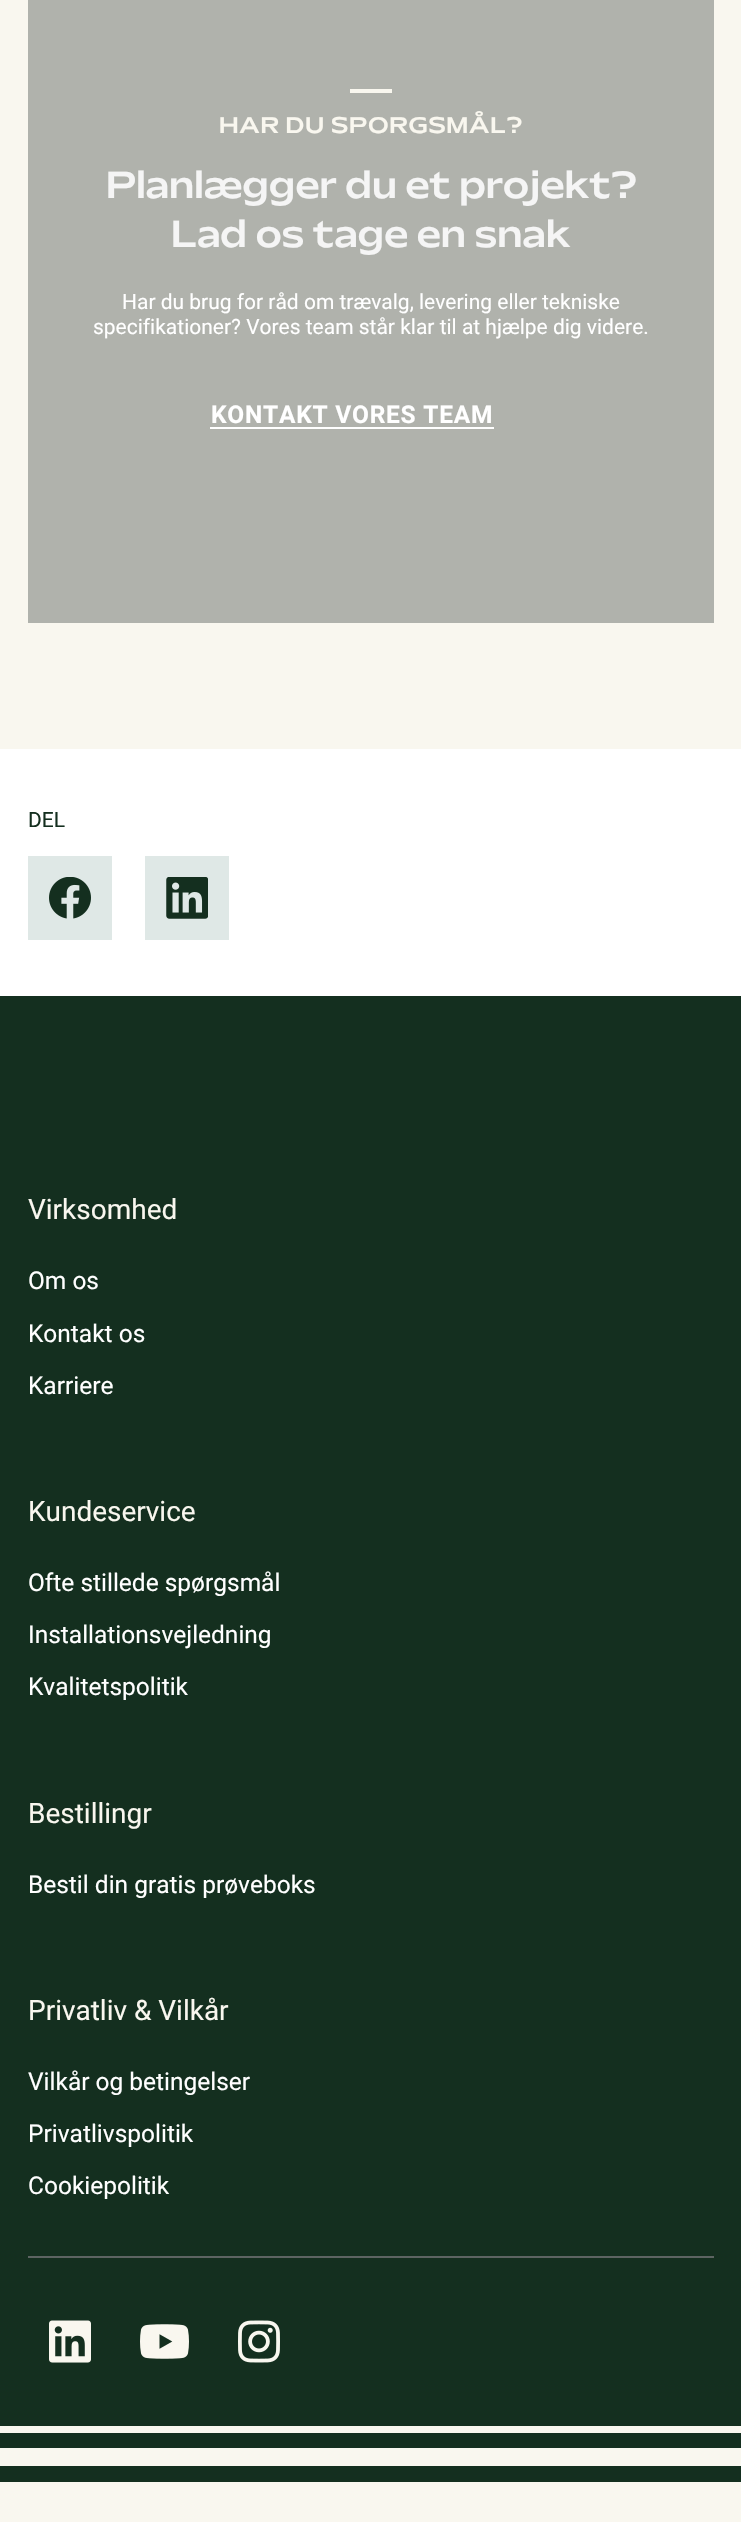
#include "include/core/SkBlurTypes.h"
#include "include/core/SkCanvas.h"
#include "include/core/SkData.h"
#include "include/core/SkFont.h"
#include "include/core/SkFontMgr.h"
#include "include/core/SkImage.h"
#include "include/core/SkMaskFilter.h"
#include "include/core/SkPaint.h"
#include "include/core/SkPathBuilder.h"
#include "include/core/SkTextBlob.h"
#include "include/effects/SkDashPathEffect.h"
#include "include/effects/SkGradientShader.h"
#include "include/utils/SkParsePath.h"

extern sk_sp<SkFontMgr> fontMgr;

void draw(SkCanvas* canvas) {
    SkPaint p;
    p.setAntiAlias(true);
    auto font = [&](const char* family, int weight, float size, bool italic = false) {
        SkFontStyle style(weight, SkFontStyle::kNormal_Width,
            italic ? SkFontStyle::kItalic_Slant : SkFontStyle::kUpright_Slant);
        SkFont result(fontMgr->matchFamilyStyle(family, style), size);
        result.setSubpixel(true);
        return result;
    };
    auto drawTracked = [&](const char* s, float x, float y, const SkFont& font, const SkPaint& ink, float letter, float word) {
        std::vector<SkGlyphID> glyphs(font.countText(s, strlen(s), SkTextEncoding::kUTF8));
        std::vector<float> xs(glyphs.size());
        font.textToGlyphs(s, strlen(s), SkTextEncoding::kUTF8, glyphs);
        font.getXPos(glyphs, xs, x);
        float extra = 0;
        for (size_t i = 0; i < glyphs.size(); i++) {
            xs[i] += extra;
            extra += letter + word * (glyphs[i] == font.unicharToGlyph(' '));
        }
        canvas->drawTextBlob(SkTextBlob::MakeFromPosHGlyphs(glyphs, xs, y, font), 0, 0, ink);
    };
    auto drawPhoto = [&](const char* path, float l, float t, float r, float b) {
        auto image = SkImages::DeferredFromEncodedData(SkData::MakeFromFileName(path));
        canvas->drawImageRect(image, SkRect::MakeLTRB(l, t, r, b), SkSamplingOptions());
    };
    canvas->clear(0xFFFFFFFF);
    {
        const struct { float l, t, r, b; SkColor color; } items[] = {
            {0, 0, 741, 749, 0xFFF9F7EF},
            {28, 0, 714, 623, 0xFFB0B2AC},
            {350, 89, 392, 93, 0xFFF9F7EF},
        };
        for (auto [l, t, r, b, color] : items) {
            p.setColor(color);
            canvas->drawRect(SkRect::MakeLTRB(l, t, r, b), p);
        }
    }
    auto font1 = font("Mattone", 600, 21);
    drawTracked("HAR DU SPØRGSMÅL?", 219, 133, font1, p, 0.75f, 0);
    auto font2 = font("Mattone", 600, 35);
    p.setColor(0xFFF5F5F5);
    canvas->drawString("Planlægger du et projekt?", 106, 198, font2, p);
    canvas->drawString("Lad os tage en snak", 171, 247, font2, p);
    auto font3 = font("Roboto", 400, 21);
    p.setColor(0xFFFFFFFF);
    canvas->drawString("Har du brug for råd om trævalg, levering eller tekniske", 122, 309, font3, p);
    canvas->drawString("specifikationer? Vores team står klar til at hjælpe dig videre.", 93, 334, font3, p);
    auto font4 = font("Roboto", 700, 24.5f);
    drawTracked("KONTAKT VORES TEAM", 211, 423, font4, p, 0.75f, 0);
    canvas->drawRect(SkRect::MakeLTRB(210, 427, 494, 429), p);
    p.setColor(0xFF142F1F);
    canvas->drawString("DEL", 28, 827, font3, p);
    p.setColor(0xFFDFE8E6);
    canvas->drawRect(SkRect::MakeLTRB(28, 856, 112, 940), p);
    drawPhoto("media/1.png", 49, 877, 91, 919);
    canvas->drawRect(SkRect::MakeLTRB(145, 856, 229, 940), p);
    drawPhoto("media/2.png", 166, 877, 208, 919);
    p.setColor(0xFF142F1F);
    canvas->drawRect(SkRect::MakeLTRB(0, 996, 741, 2426), p);
    auto font5 = font("Roboto", 400, 28);
    p.setColor(0xFFF9F7EF);
    canvas->drawString("Virksomhed", 28, 1219, font5, p);
    auto font6 = font("Roboto", 400, 24.5f);
    p.setColor(0xFFFFFFFF);
    {
        const struct { const char* s; float x, y; } items[] = {
            {"Om os", 28, 1289},
            {"Kontakt os", 28, 1342},
            {"Karriere", 28, 1394},
        };
        for (auto [s, x, y] : items) {
            canvas->drawString(s, x, y, font6, p);
        }
    }
    p.setColor(0xFFF9F7EF);
    canvas->drawString("Kundeservice", 28, 1521, font5, p);
    p.setColor(0xFFFFFFFF);
    {
        const struct { const char* s; float x, y; } items[] = {
            {"Ofte stillede spørgsmål", 28, 1591},
            {"Installationsvejledning", 28, 1643},
            {"Kvalitetspolitik", 28, 1695},
        };
        for (auto [s, x, y] : items) {
            canvas->drawString(s, x, y, font6, p);
        }
    }
    p.setColor(0xFFF9F7EF);
    canvas->drawString("Bestillingr", 28, 1823, font5, p);
    p.setColor(0xFFFFFFFF);
    canvas->drawString("Bestil din gratis prøveboks", 28, 1893, font6, p);
    p.setColor(0xFFF9F7EF);
    canvas->drawString("Privatliv & Vilkår", 28, 2020, font5, p);
    p.setColor(0xFFFFFFFF);
    {
        const struct { const char* s; float x, y; } items[] = {
            {"Vilkår og betingelser", 28, 2090},
            {"Privatlivspolitik", 28, 2142},
            {"Cookiepolitik", 28, 2194},
        };
        for (auto [s, x, y] : items) {
            canvas->drawString(s, x, y, font6, p);
        }
    }
    p.setColor(0xFF5D6462);
    canvas->drawRect(SkRect::MakeLTRB(28, 2256, 714, 2258), p);
    drawPhoto("media/3.png", 49, 2320, 91, 2363);
    drawPhoto("media/4.png", 140, 2324, 189, 2359);
    drawPhoto("media/5.png", 238, 2320, 280, 2363);
    {
        const struct { float l, t, r, b; SkColor color; } items[] = {
            {0, 2426, 741, 2522, 0xFFF9F7EF},
            {0, 2433, 741, 2448, 0xFF142F1F},
            {0, 2466, 741, 2482, 0xFF142F1F},
        };
        for (auto [l, t, r, b, color] : items) {
            p.setColor(color);
            canvas->drawRect(SkRect::MakeLTRB(l, t, r, b), p);
        }
    }
}
